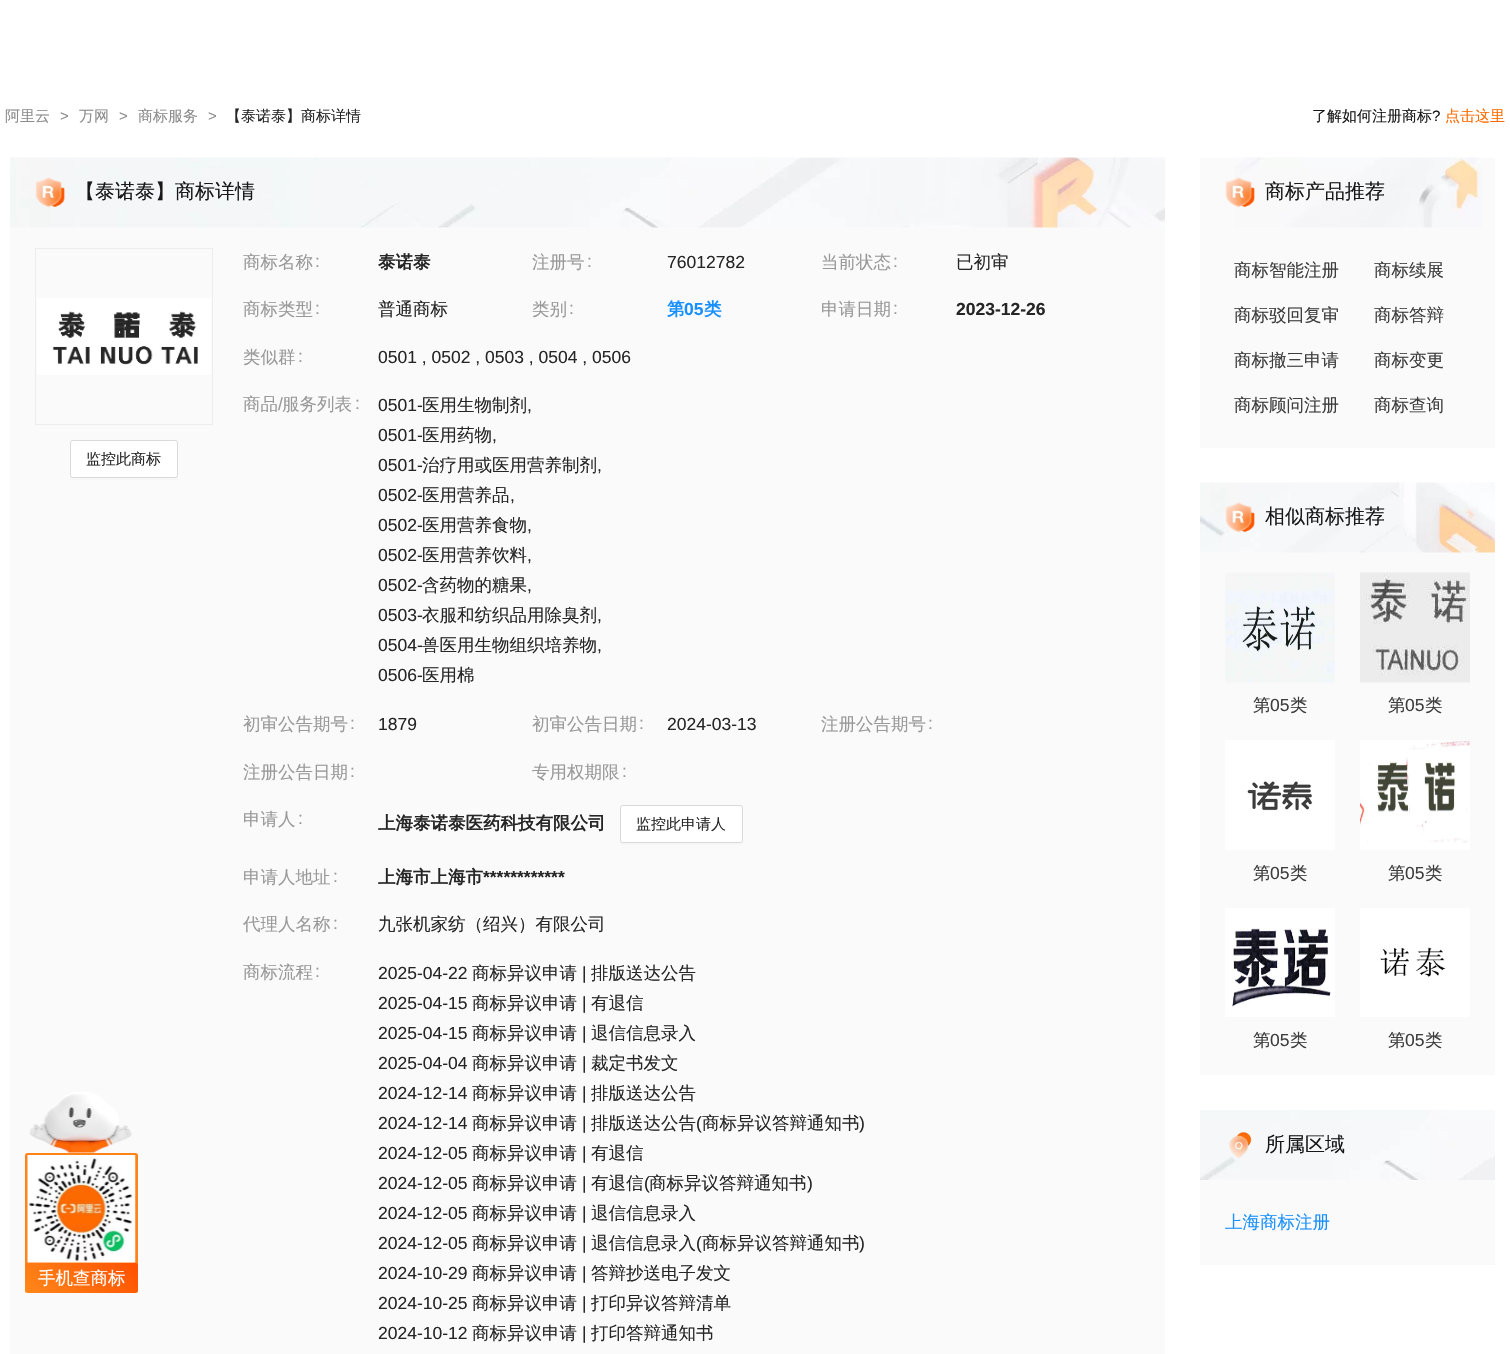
#include "include/core/SkBlurTypes.h"
#include "include/core/SkCanvas.h"
#include "include/core/SkData.h"
#include "include/core/SkFont.h"
#include "include/core/SkFontMgr.h"
#include "include/core/SkImage.h"
#include "include/core/SkMaskFilter.h"
#include "include/core/SkPaint.h"
#include "include/core/SkPathBuilder.h"
#include "include/core/SkTextBlob.h"
#include "include/effects/SkDashPathEffect.h"
#include "include/effects/SkGradientShader.h"
#include "include/utils/SkParsePath.h"

extern sk_sp<SkFontMgr> fontMgr;

void draw(SkCanvas* canvas) {
    SkPaint p;
    p.setAntiAlias(true);
    auto font = [&](const char* family, int weight, float size, bool italic = false) {
        SkFontStyle style(weight, SkFontStyle::kNormal_Width,
            italic ? SkFontStyle::kItalic_Slant : SkFontStyle::kUpright_Slant);
        SkFont result(fontMgr->matchFamilyStyle(family, style), size);
        result.setSubpixel(true);
        return result;
    };
    auto drawPhoto = [&](const char* path, float l, float t, float r, float b) {
        auto image = SkImages::DeferredFromEncodedData(SkData::MakeFromFileName(path));
        canvas->drawImageRect(image, SkRect::MakeLTRB(l, t, r, b), SkSamplingOptions());
    };
    canvas->clear(0xFFFFFFFF);
    auto font1 = font("WenQuanYi Zen Hei", 500, 15);
    p.setColor(0xFF8C8C8C);
    canvas->drawString("阿里云", 5, 121, font1, p);
    auto font2 = font("Liberation Sans", 400, 15);
    canvas->drawString(">", 60, 121, font2, p);
    canvas->drawString("万网", 79, 121, font1, p);
    canvas->drawString(">", 119, 121, font2, p);
    canvas->drawString("商标服务", 138, 121, font1, p);
    canvas->drawString(">", 208, 121, font2, p);
    p.setColor(0xFF262626);
    canvas->drawString("【泰诺泰】商标详情", 226, 121, font1, p);
    p.setColor(0xFF181818);
    canvas->drawString("了解如何注册商标", 1312, 121, font1, p);
    canvas->drawString("?", 1432, 121, font2, p);
    p.setColor(0xFFFF6A00);
    canvas->drawString("点击这里", 1445, 121, font1, p);
    p.setColor(0xFFFAFAFA);
    canvas->drawRect(SkRect::MakeLTRB(10, 227, 1165, 1354), p);
    drawPhoto("media/1.png", 10, 157, 1165, 228);
    drawPhoto("media/2.png", 35, 177, 65, 208);
    auto font3 = font("WenQuanYi Zen Hei", 500, 20);
    p.setColor(0xFF181818);
    canvas->drawString("【泰诺泰】商标详情", 75, 198, font3, p);
    p.setStyle(SkPaint::kStroke_Style);
    p.setStrokeWidth(1);
    p.setColor(0xFFEDEDED);
    canvas->drawRect(SkRect::MakeLTRB(35.5f, 248.5f, 212.5f, 424.5f), p);
    drawPhoto("media/3.png", 37, 298, 211, 375);
    p.setStyle(SkPaint::kFill_Style);
    p.setColor(0xFFF6F6F6);
    canvas->drawPath(SkPathBuilder().moveTo(70, 475).lineTo(70, 478).cubicTo(70, 479, 71, 480, 72, 480).lineTo(176, 480).cubicTo(177, 480, 178, 479, 178, 478).lineTo(178, 446).lineTo(178, 444).lineTo(178, 475).cubicTo(178, 476, 176, 478, 175, 478).lineTo(72, 478).cubicTo(71, 478, 70, 476, 70, 475).close().detach(), p);
    p.setColor(0xFFFFFFFF);
    canvas->drawRoundRect(SkRect::MakeLTRB(70.5f, 440.5f, 177.5f, 477.5f), 2, 2, p);
    p.setStyle(SkPaint::kStroke_Style);
    p.setColor(0xFFD9D9D9);
    canvas->drawRoundRect(SkRect::MakeLTRB(70.5f, 440.5f, 177.5f, 477.5f), 2, 2, p);
    p.setStyle(SkPaint::kFill_Style);
    p.setColor(0xFF262626);
    canvas->drawString("监控此商标", 86, 464, font1, p);
    auto font4 = font("WenQuanYi Zen Hei", 500, 17.5f);
    p.setColor(0xFF999999);
    canvas->drawString("商标名称", 243, 268, font4, p);
    auto font5 = font("Liberation Sans", 400, 17.5f);
    canvas->drawString(":", 315, 267, font5, p);
    auto font6 = font("WenQuanYi Zen Hei", 700, 17.5f);
    p.setColor(0xFF262626);
    canvas->drawString("泰诺泰", 378, 268, font6, p);
    p.setColor(0xFF999999);
    canvas->drawString("注册号", 532, 268, font4, p);
    canvas->drawString(":", 587, 267, font5, p);
    p.setColor(0xFF262626);
    canvas->drawString("76012782", 667, 268, font5, p);
    p.setColor(0xFF999999);
    canvas->drawString("当前状态", 821, 268, font4, p);
    canvas->drawString(":", 893, 267, font5, p);
    p.setColor(0xFF262626);
    canvas->drawString("已初审", 956, 268, font4, p);
    p.setColor(0xFF999999);
    canvas->drawString("商标类型", 243, 315, font4, p);
    canvas->drawString(":", 315, 314, font5, p);
    p.setColor(0xFF262626);
    canvas->drawString("普通商标", 378, 315, font4, p);
    p.setColor(0xFF999999);
    canvas->drawString("类别", 532, 315, font4, p);
    canvas->drawString(":", 569, 314, font5, p);
    p.setColor(0xFF1890FF);
    canvas->drawString("第", 667, 315, font6, p);
    auto font7 = font("Liberation Sans", 700, 17.5f);
    canvas->drawString("05", 684, 315, font7, p);
    canvas->drawString("类", 704, 315, font6, p);
    p.setColor(0xFF999999);
    canvas->drawString("申请日期", 821, 315, font4, p);
    canvas->drawString(":", 893, 314, font5, p);
    p.setColor(0xFF262626);
    canvas->drawString("2023-12-26", 956, 315, font7, p);
    p.setColor(0xFF999999);
    canvas->drawString("类似群", 243, 363, font4, p);
    canvas->drawString(":", 298, 362, font5, p);
    p.setColor(0xFF262626);
    canvas->drawString("0501 , 0502 , 0503 , 0504 , 0506", 378, 363, font5, p);
    p.setColor(0xFF999999);
    canvas->drawString("商品", 243, 410, font4, p);
    canvas->drawString("/", 278, 410, font5, p);
    canvas->drawString("服务列表", 282, 410, font4, p);
    canvas->drawString(":", 355, 409, font5, p);
    p.setColor(0xFF262626);
    canvas->drawString("0501-", 378, 411, font5, p);
    canvas->drawString("医用生物制剂", 422, 411, font4, p);
    canvas->drawString(",", 527, 411, font5, p);
    canvas->drawString("0501-", 378, 441, font5, p);
    canvas->drawString("医用药物", 422, 441, font4, p);
    canvas->drawString(",", 492, 441, font5, p);
    canvas->drawString("0501-", 378, 471, font5, p);
    canvas->drawString("治疗用或医用营养制剂", 422, 471, font4, p);
    canvas->drawString(",", 597, 471, font5, p);
    canvas->drawString("0502-", 378, 501, font5, p);
    canvas->drawString("医用营养品", 422, 501, font4, p);
    canvas->drawString(",", 510, 501, font5, p);
    canvas->drawString("0502-", 378, 531, font5, p);
    canvas->drawString("医用营养食物", 422, 531, font4, p);
    canvas->drawString(",", 527, 531, font5, p);
    canvas->drawString("0502-", 378, 561, font5, p);
    canvas->drawString("医用营养饮料", 422, 561, font4, p);
    canvas->drawString(",", 527, 561, font5, p);
    canvas->drawString("0502-", 378, 591, font5, p);
    canvas->drawString("含药物的糖果", 422, 591, font4, p);
    canvas->drawString(",", 527, 591, font5, p);
    canvas->drawString("0503-", 378, 621, font5, p);
    canvas->drawString("衣服和纺织品用除臭剂", 422, 621, font4, p);
    canvas->drawString(",", 597, 621, font5, p);
    canvas->drawString("0504-", 378, 651, font5, p);
    canvas->drawString("兽医用生物组织培养物", 422, 651, font4, p);
    canvas->drawString(",", 597, 651, font5, p);
    canvas->drawString("0506-", 378, 681, font5, p);
    canvas->drawString("医用棉", 422, 681, font4, p);
    p.setColor(0xFF999999);
    canvas->drawString("初审公告期号", 243, 730, font4, p);
    canvas->drawString(":", 350, 729, font5, p);
    p.setColor(0xFF262626);
    canvas->drawString("1879", 378, 730, font5, p);
    p.setColor(0xFF999999);
    canvas->drawString("初审公告日期", 532, 730, font4, p);
    canvas->drawString(":", 639, 729, font5, p);
    p.setColor(0xFF262626);
    canvas->drawString("2024-03-13", 667, 730, font5, p);
    p.setColor(0xFF999999);
    canvas->drawString("注册公告期号", 821, 730, font4, p);
    canvas->drawString(":", 928, 729, font5, p);
    canvas->drawString("注册公告日期", 243, 778, font4, p);
    canvas->drawString(":", 350, 777, font5, p);
    canvas->drawString("专用权期限", 532, 778, font4, p);
    canvas->drawString(":", 622, 777, font5, p);
    canvas->drawString("申请人", 243, 825, font4, p);
    canvas->drawString(":", 298, 824, font5, p);
    p.setColor(0xFF262626);
    canvas->drawString("上海泰诺泰医药科技有限公司", 378, 829, font6, p);
    p.setColor(0xFFF6F6F6);
    canvas->drawPath(SkPathBuilder().moveTo(620, 840).lineTo(620, 842).cubicTo(620, 844, 621, 845, 622, 845).lineTo(740, 845).cubicTo(742, 845, 743, 844, 743, 842).lineTo(743, 810).lineTo(742, 809).lineTo(742, 840).cubicTo(742, 841, 741, 842, 740, 842).lineTo(622, 842).cubicTo(621, 842, 620, 841, 620, 840).close().detach(), p);
    p.setColor(0xFFFFFFFF);
    canvas->drawRoundRect(SkRect::MakeLTRB(620.5f, 805.5f, 742.5f, 842.5f), 2, 2, p);
    p.setStyle(SkPaint::kStroke_Style);
    p.setColor(0xFFD9D9D9);
    canvas->drawRoundRect(SkRect::MakeLTRB(620.5f, 805.5f, 742.5f, 842.5f), 2, 2, p);
    p.setStyle(SkPaint::kFill_Style);
    p.setColor(0xFF262626);
    canvas->drawString("监控此申请人", 636, 829, font1, p);
    p.setColor(0xFF999999);
    canvas->drawString("申请人地址", 243, 883, font4, p);
    canvas->drawString(":", 333, 882, font5, p);
    p.setColor(0xFF262626);
    canvas->drawString("上海市上海市", 378, 883, font6, p);
    canvas->drawString("************", 483, 883, font7, p);
    p.setColor(0xFF999999);
    canvas->drawString("代理人名称", 243, 930, font4, p);
    canvas->drawString(":", 333, 929, font5, p);
    p.setColor(0xFF262626);
    canvas->drawString("九张机家纺（绍兴）有限公司", 378, 930, font4, p);
    p.setColor(0xFF999999);
    canvas->drawString("商标流程", 243, 978, font4, p);
    canvas->drawString(":", 315, 977, font5, p);
    p.setColor(0xFF262626);
    canvas->drawString("2025-04-22", 378, 979, font5, p);
    canvas->drawString("商标异议申请", 472, 979, font4, p);
    canvas->drawString("|", 582, 979, font5, p);
    canvas->drawString("排版送达公告", 591, 979, font4, p);
    canvas->drawString("2025-04-15", 378, 1009, font5, p);
    canvas->drawString("商标异议申请", 472, 1009, font4, p);
    canvas->drawString("|", 582, 1009, font5, p);
    canvas->drawString("有退信", 591, 1009, font4, p);
    canvas->drawString("2025-04-15", 378, 1039, font5, p);
    canvas->drawString("商标异议申请", 472, 1039, font4, p);
    canvas->drawString("|", 582, 1039, font5, p);
    canvas->drawString("退信信息录入", 591, 1039, font4, p);
    canvas->drawString("2025-04-04", 378, 1069, font5, p);
    canvas->drawString("商标异议申请", 472, 1069, font4, p);
    canvas->drawString("|", 582, 1069, font5, p);
    canvas->drawString("裁定书发文", 591, 1069, font4, p);
    canvas->drawString("2024-12-14", 378, 1099, font5, p);
    canvas->drawString("商标异议申请", 472, 1099, font4, p);
    canvas->drawString("|", 582, 1099, font5, p);
    canvas->drawString("排版送达公告", 591, 1099, font4, p);
    canvas->drawString("2024-12-14", 378, 1129, font5, p);
    canvas->drawString("商标异议申请", 472, 1129, font4, p);
    canvas->drawString("|", 582, 1129, font5, p);
    canvas->drawString("排版送达公告", 591, 1129, font4, p);
    canvas->drawString("(", 696, 1129, font5, p);
    canvas->drawString("商标异议答辩通知书", 702, 1129, font4, p);
    canvas->drawString(")", 859, 1129, font5, p);
    canvas->drawString("2024-12-05", 378, 1159, font5, p);
    canvas->drawString("商标异议申请", 472, 1159, font4, p);
    canvas->drawString("|", 582, 1159, font5, p);
    canvas->drawString("有退信", 591, 1159, font4, p);
    canvas->drawString("2024-12-05", 378, 1189, font5, p);
    canvas->drawString("商标异议申请", 472, 1189, font4, p);
    canvas->drawString("|", 582, 1189, font5, p);
    canvas->drawString("有退信", 591, 1189, font4, p);
    canvas->drawString("(", 644, 1189, font5, p);
    canvas->drawString("商标异议答辩通知书", 649, 1189, font4, p);
    canvas->drawString(")", 807, 1189, font5, p);
    canvas->drawString("2024-12-05", 378, 1219, font5, p);
    canvas->drawString("商标异议申请", 472, 1219, font4, p);
    canvas->drawString("|", 582, 1219, font5, p);
    canvas->drawString("退信信息录入", 591, 1219, font4, p);
    canvas->drawString("2024-12-05", 378, 1249, font5, p);
    canvas->drawString("商标异议申请", 472, 1249, font4, p);
    canvas->drawString("|", 582, 1249, font5, p);
    canvas->drawString("退信信息录入", 591, 1249, font4, p);
    canvas->drawString("(", 696, 1249, font5, p);
    canvas->drawString("商标异议答辩通知书", 702, 1249, font4, p);
    canvas->drawString(")", 859, 1249, font5, p);
    canvas->drawString("2024-10-29", 378, 1279, font5, p);
    canvas->drawString("商标异议申请", 472, 1279, font4, p);
    canvas->drawString("|", 582, 1279, font5, p);
    canvas->drawString("答辩抄送电子发文", 591, 1279, font4, p);
    canvas->drawString("2024-10-25", 378, 1309, font5, p);
    canvas->drawString("商标异议申请", 472, 1309, font4, p);
    canvas->drawString("|", 582, 1309, font5, p);
    canvas->drawString("打印异议答辩清单", 591, 1309, font4, p);
    canvas->drawString("2024-10-12", 378, 1339, font5, p);
    canvas->drawString("商标异议申请", 472, 1339, font4, p);
    canvas->drawString("|", 582, 1339, font5, p);
    canvas->drawString("打印答辩通知书", 591, 1339, font4, p);
    p.setColor(0xFFFAFAFA);
    canvas->drawRect(SkRect::MakeLTRB(1200, 158, 1495, 448), p);
    drawPhoto("media/4.png", 1235, 157, 1482, 228);
    drawPhoto("media/5.png", 1225, 177, 1255, 208);
    p.setColor(0xFF181818);
    canvas->drawString("商标产品推荐", 1265, 198, font3, p);
    p.setColor(0xFF3D3D3D);
    {
        const struct { const char* s; float x, y; } items[] = {
            {"商标智能注册", 1234, 276},
            {"商标续展", 1374, 276},
            {"商标驳回复审", 1234, 321},
            {"商标答辩", 1374, 321},
            {"商标撤三申请", 1234, 366},
            {"商标变更", 1374, 366},
            {"商标顾问注册", 1234, 411},
            {"商标查询", 1374, 411},
        };
        for (auto [s, x, y] : items) {
            canvas->drawString(s, x, y, font4, p);
        }
    }
    p.setColor(0xFFFAFAFA);
    canvas->drawRect(SkRect::MakeLTRB(1200, 552, 1495, 1075), p);
    drawPhoto("media/6.png", 1200, 482, 1495, 553);
    drawPhoto("media/7.png", 1225, 502, 1255, 533);
    p.setColor(0xFF181818);
    canvas->drawString("相似商标推荐", 1265, 523, font3, p);
    drawPhoto("media/8.png", 1225, 572, 1335, 683);
    p.setColor(0xFF3D3D3D);
    canvas->drawString("第", 1253, 711, font4, p);
    canvas->drawString("05", 1270, 711, font5, p);
    canvas->drawString("类", 1290, 711, font4, p);
    drawPhoto("media/9.png", 1360, 572, 1470, 683);
    canvas->drawString("第", 1388, 711, font4, p);
    canvas->drawString("05", 1405, 711, font5, p);
    canvas->drawString("类", 1425, 711, font4, p);
    drawPhoto("media/10.png", 1225, 740, 1335, 850);
    canvas->drawString("第", 1253, 879, font4, p);
    canvas->drawString("05", 1270, 879, font5, p);
    canvas->drawString("类", 1290, 879, font4, p);
    drawPhoto("media/11.png", 1360, 740, 1470, 850);
    canvas->drawString("第", 1388, 879, font4, p);
    canvas->drawString("05", 1405, 879, font5, p);
    canvas->drawString("类", 1425, 879, font4, p);
    drawPhoto("media/12.png", 1225, 908, 1335, 1017);
    canvas->drawString("第", 1253, 1046, font4, p);
    canvas->drawString("05", 1270, 1046, font5, p);
    canvas->drawString("类", 1290, 1046, font4, p);
    drawPhoto("media/13.png", 1360, 908, 1470, 1017);
    canvas->drawString("第", 1388, 1046, font4, p);
    canvas->drawString("05", 1405, 1046, font5, p);
    canvas->drawString("类", 1425, 1046, font4, p);
    p.setColor(0xFFFAFAFA);
    canvas->drawRect(SkRect::MakeLTRB(1200, 1180, 1495, 1265), p);
    drawPhoto("media/14.png", 1200, 1110, 1495, 1180);
    drawPhoto("media/15.png", 1229, 1132, 1252, 1159);
    p.setColor(0xFF181818);
    canvas->drawString("所属区域", 1265, 1151, font3, p);
    p.setColor(0xFF1890FF);
    canvas->drawString("上海商标注册", 1225, 1228, font4, p);
    drawPhoto("media/16.png", 29, 1092, 132, 1153);
    p.setStyle(SkPaint::kStroke_Style);
    p.setStrokeWidth(3);
    p.setColor(0xFFFF8319);
    canvas->drawPath(SkPathBuilder().moveTo(27.5f, 1154.5f).lineTo(135.5f, 1154.5f).cubicTo(136, 1154.5f, 136.5f, 1155, 136.5f, 1155.5f).lineTo(136.5f, 1263.5f).lineTo(26.5f, 1263.5f).lineTo(26.5f, 1155.5f).cubicTo(26.5f, 1155, 27, 1154.5f, 27.5f, 1154.5f).close().detach(), p);
    drawPhoto("media/17.png", 27, 1155, 136, 1263);
    p.setStyle(SkPaint::kFill_Style);
    {
        const SkColor colors[] = {0xFFFF871A, 0xFFFF5000};
        const float stops[] = {0, 1};
        const SkPoint ends[] = {{46, 1313}, {117, 1242}};
        p.setShader(SkGradientShader::MakeLinear(ends, colors, stops, 2, SkTileMode::kClamp));
        p.setAlpha(255);
    }
    canvas->drawRoundRect(SkRect::MakeLTRB(25, 1263, 138, 1293), 2.5f, 2.5f, p);
    p.setShader(nullptr);
    p.setColor(0xFFFFFFFF);
    canvas->drawString("手机查商标", 38, 1284, font4, p);
}
